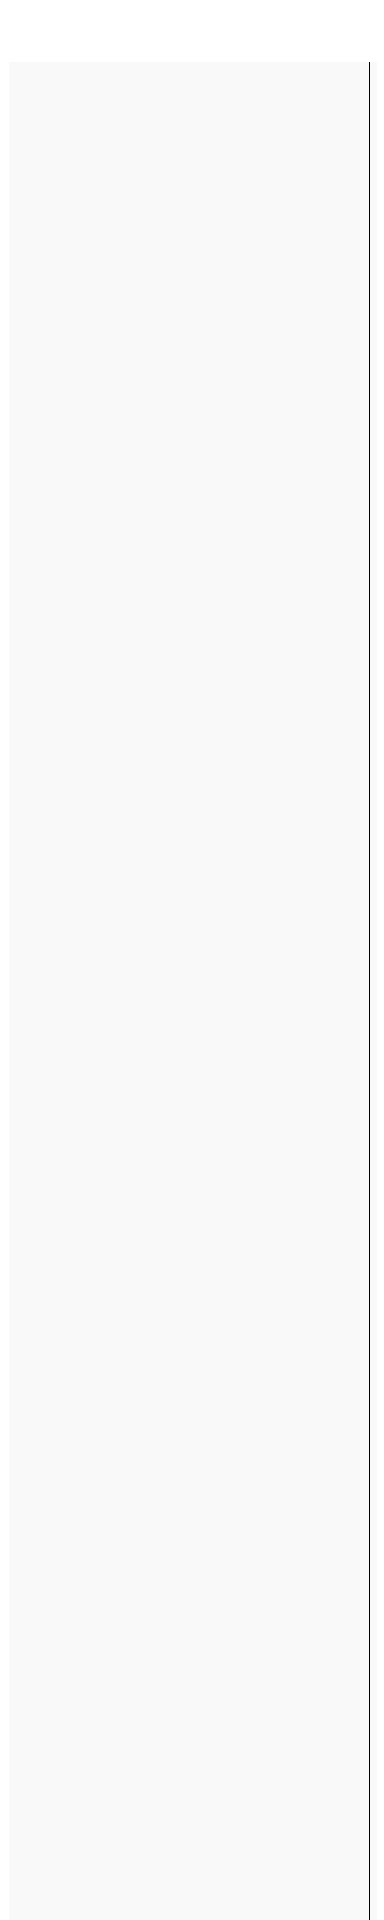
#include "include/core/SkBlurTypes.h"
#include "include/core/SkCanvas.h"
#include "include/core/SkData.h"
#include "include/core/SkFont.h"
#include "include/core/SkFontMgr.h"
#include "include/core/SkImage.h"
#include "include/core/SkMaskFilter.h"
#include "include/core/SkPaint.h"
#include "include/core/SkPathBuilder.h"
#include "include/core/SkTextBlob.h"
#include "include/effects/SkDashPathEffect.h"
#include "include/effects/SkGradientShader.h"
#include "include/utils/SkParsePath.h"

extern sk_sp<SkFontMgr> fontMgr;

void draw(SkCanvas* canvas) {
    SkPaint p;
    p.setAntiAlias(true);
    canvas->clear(0xFFFFFFFF);
    p.setColor(0xFFF9F9F9);
    canvas->drawRect(SkRect::MakeLTRB(9, 62, 377, 1920), p);
    p.setColor(0xFF000000);
    canvas->drawRect(SkRect::MakeLTRB(369, 62, 370, 1920), p);
}
